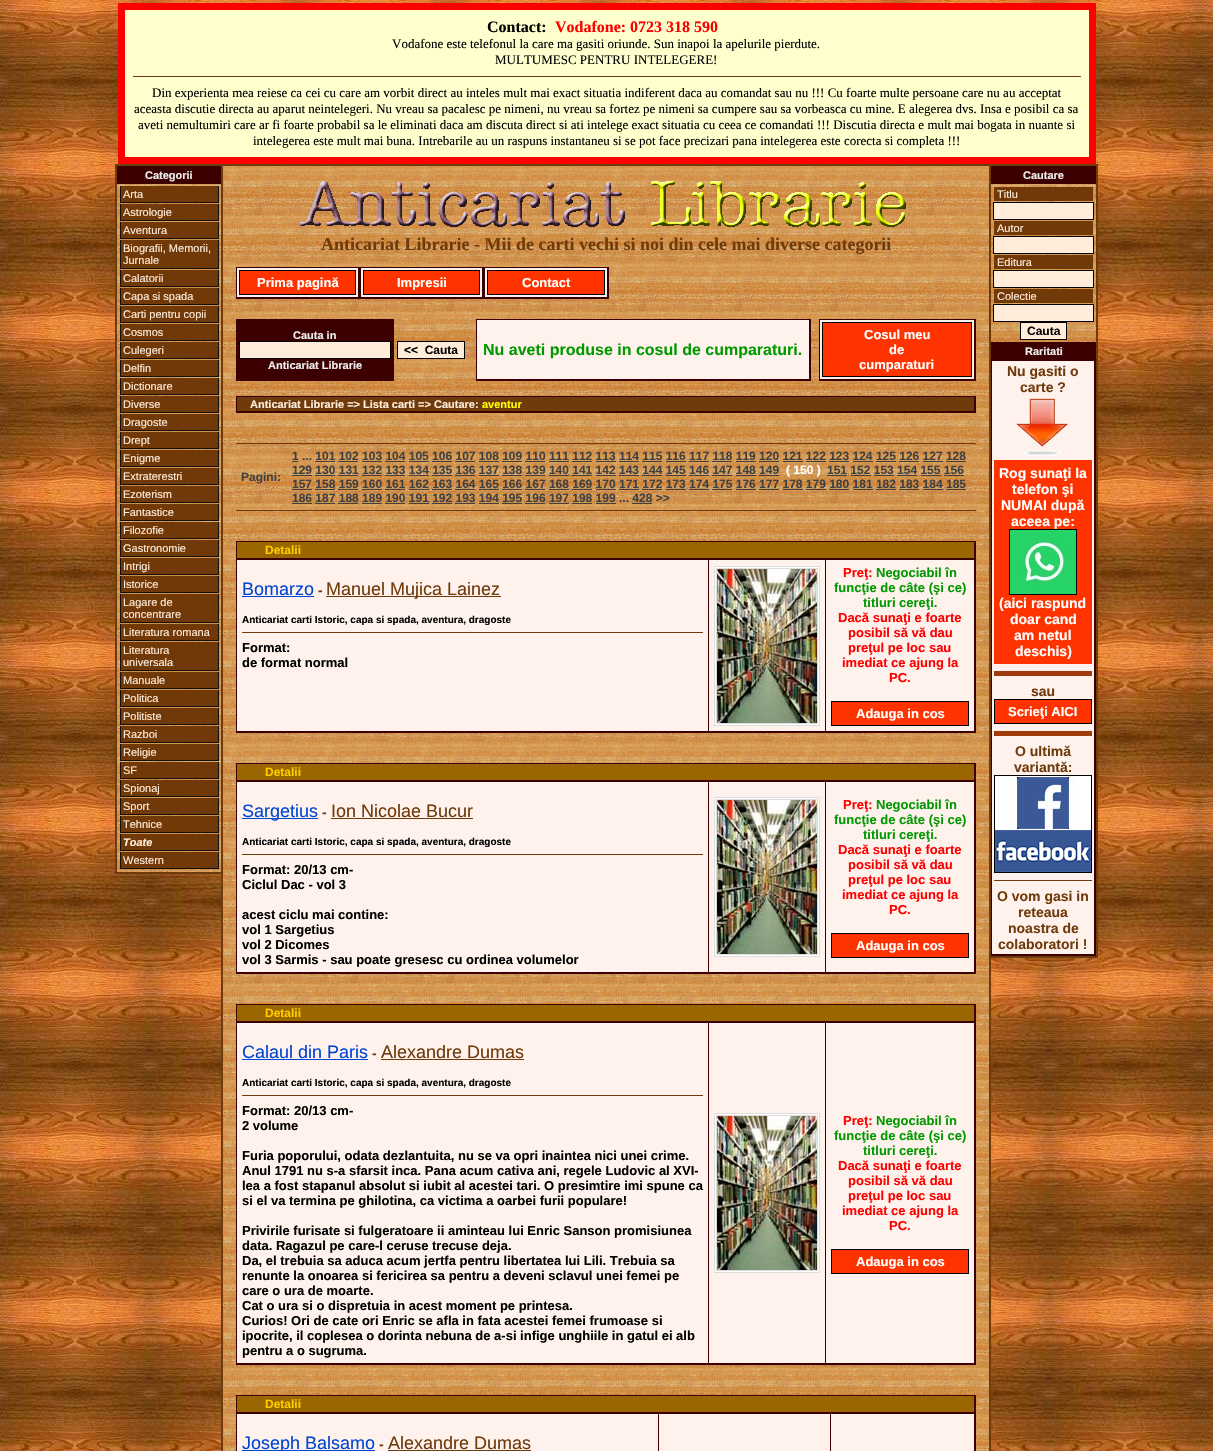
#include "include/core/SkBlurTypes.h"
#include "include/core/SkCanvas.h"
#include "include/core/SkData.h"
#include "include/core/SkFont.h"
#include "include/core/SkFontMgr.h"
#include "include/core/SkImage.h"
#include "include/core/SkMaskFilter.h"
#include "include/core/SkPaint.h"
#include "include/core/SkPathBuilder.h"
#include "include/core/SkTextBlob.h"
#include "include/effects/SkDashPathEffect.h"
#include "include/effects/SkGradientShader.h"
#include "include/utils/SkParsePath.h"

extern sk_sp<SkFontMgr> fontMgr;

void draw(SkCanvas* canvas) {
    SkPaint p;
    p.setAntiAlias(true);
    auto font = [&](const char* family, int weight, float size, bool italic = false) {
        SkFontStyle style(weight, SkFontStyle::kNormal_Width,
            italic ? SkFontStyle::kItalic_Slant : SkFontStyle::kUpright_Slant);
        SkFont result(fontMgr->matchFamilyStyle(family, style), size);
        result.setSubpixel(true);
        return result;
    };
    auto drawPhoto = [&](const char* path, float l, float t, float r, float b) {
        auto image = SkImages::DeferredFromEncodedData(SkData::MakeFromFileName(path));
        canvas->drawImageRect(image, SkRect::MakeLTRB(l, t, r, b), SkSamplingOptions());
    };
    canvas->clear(0xFFFFFFFF);
    drawPhoto("media/1.png", 0, 0, 1213, 1451);
    p.setColor(0xFFFFFFCE);
    canvas->drawRect(SkRect::MakeLTRB(121.5f, 6.5f, 1092.5f, 160.5f), p);
    p.setStyle(SkPaint::kStroke_Style);
    p.setStrokeWidth(7);
    p.setColor(0xFFFF0000);
    canvas->drawRect(SkRect::MakeLTRB(121.5f, 6.5f, 1092.5f, 160.5f), p);
    auto font1 = font("Liberation Serif", 700, 16);
    p.setStyle(SkPaint::kFill_Style);
    p.setColor(0xFF000000);
    canvas->drawString("Contact:", 487, 32, font1, p);
    p.setColor(0xFFFF0000);
    canvas->drawString("Vodafone: 0723 318 590", 555, 32, font1, p);
    auto font2 = font("Liberation Serif", 400, 13);
    p.setColor(0xFF000000);
    canvas->drawString("Vodafone este telefonul la care ma gasiti oriunde. Sun inapoi la apelurile pierdute.", 392, 48, font2, p);
    canvas->drawString("MULTUMESC PENTRU INTELEGERE!", 495, 64, font2, p);
    p.setColor(0xFF6F3B0C);
    canvas->drawRect(SkRect::MakeLTRB(133, 76, 1081, 77), p);
    p.setColor(0xFF000000);
    {
        const struct { const char* s; float x, y; } items[] = {
            {"Din experienta mea reiese ca cei cu care am vorbit direct au inteles mult mai exact situatia indiferent daca au comandat sau nu !!! Cu foarte multe persoane care nu au acceptat", 152, 97},
            {"aceasta discutie directa au aparut neintelegeri. Nu vreau sa pacalesc pe nimeni, nu vreau sa fortez pe nimeni sa cumpere sau sa vorbeasca cu mine. E alegerea dvs. Insa e posibil ca sa", 134, 113},
            {"aveti nemultumiri care ar fi foarte probabil sa le eliminati daca am discuta direct si ati intelege exact situatia cu ceea ce comandati !!! Discutia directa e mult mai bogata in nuante si", 138, 129},
            {"intelegerea este mult mai buna. Intrebarile au un raspuns instantaneu si se pot face precizari pana intelegerea este corecta si completa !!!", 253, 145},
        };
        for (auto [s, x, y] : items) {
            canvas->drawString(s, x, y, font2, p);
        }
    }
    drawPhoto("media/2.png", 117, 184, 221, 872);
    {
        const struct { float l, t, r, b; SkColor color; } items[] = {
            {115, 164, 221, 166, 0xFF6F3B0C},
            {115, 872, 221, 874, 0xFF6F3B0C},
            {115, 164, 117, 874, 0xFF6F3B0C},
            {117, 166, 221, 184, 0xFF3C0000},
        };
        for (auto [l, t, r, b, color] : items) {
            p.setColor(color);
            canvas->drawRect(SkRect::MakeLTRB(l, t, r, b), p);
        }
    }
    auto font3 = font("Liberation Sans", 700, 11);
    p.setColor(0xFFEFEFEF);
    canvas->drawString("Categorii", 145, 179, font3, p);
    {
        const struct { float l, t, r, b; SkColor color; } items[] = {
            {121, 186, 218, 202, 0xFF713908},
            {218, 186, 219, 203, 0xFF101010},
            {120, 202, 219, 203, 0xFF101010},
            {120, 186, 121, 203, 0xFF101010},
        };
        for (auto [l, t, r, b, color] : items) {
            p.setColor(color);
            canvas->drawRect(SkRect::MakeLTRB(l, t, r, b), p);
        }
    }
    auto font4 = font("Liberation Sans", 400, 11);
    p.setColor(0xFFFFECD9);
    canvas->drawString("Arta", 123, 198, font4, p);
    {
        const struct { float l, t, r, b; SkColor color; } items[] = {
            {121, 204, 218, 220, 0xFF713908},
            {218, 204, 219, 221, 0xFF101010},
            {120, 220, 219, 221, 0xFF101010},
            {120, 204, 121, 221, 0xFF101010},
        };
        for (auto [l, t, r, b, color] : items) {
            p.setColor(color);
            canvas->drawRect(SkRect::MakeLTRB(l, t, r, b), p);
        }
    }
    p.setColor(0xFFFFECD9);
    canvas->drawString("Astrologie", 123, 216, font4, p);
    {
        const struct { float l, t, r, b; SkColor color; } items[] = {
            {121, 222, 218, 238, 0xFF713908},
            {218, 222, 219, 239, 0xFF101010},
            {120, 238, 219, 239, 0xFF101010},
            {120, 222, 121, 239, 0xFF101010},
        };
        for (auto [l, t, r, b, color] : items) {
            p.setColor(color);
            canvas->drawRect(SkRect::MakeLTRB(l, t, r, b), p);
        }
    }
    p.setColor(0xFFFFECD9);
    canvas->drawString("Aventura", 123, 234, font4, p);
    {
        const struct { float l, t, r, b; SkColor color; } items[] = {
            {121, 240, 218, 268, 0xFF713908},
            {218, 240, 219, 269, 0xFF101010},
            {120, 268, 219, 269, 0xFF101010},
            {120, 240, 121, 269, 0xFF101010},
        };
        for (auto [l, t, r, b, color] : items) {
            p.setColor(color);
            canvas->drawRect(SkRect::MakeLTRB(l, t, r, b), p);
        }
    }
    p.setColor(0xFFFFECD9);
    canvas->drawString("Biografii, Memorii,", 123, 252, font4, p);
    canvas->drawString("Jurnale", 123, 264, font4, p);
    {
        const struct { float l, t, r, b; SkColor color; } items[] = {
            {121, 270, 218, 286, 0xFF713908},
            {218, 270, 219, 287, 0xFF101010},
            {120, 286, 219, 287, 0xFF101010},
            {120, 270, 121, 287, 0xFF101010},
        };
        for (auto [l, t, r, b, color] : items) {
            p.setColor(color);
            canvas->drawRect(SkRect::MakeLTRB(l, t, r, b), p);
        }
    }
    p.setColor(0xFFFFECD9);
    canvas->drawString("Calatorii", 123, 282, font4, p);
    {
        const struct { float l, t, r, b; SkColor color; } items[] = {
            {121, 288, 218, 304, 0xFF713908},
            {218, 288, 219, 305, 0xFF101010},
            {120, 304, 219, 305, 0xFF101010},
            {120, 288, 121, 305, 0xFF101010},
        };
        for (auto [l, t, r, b, color] : items) {
            p.setColor(color);
            canvas->drawRect(SkRect::MakeLTRB(l, t, r, b), p);
        }
    }
    p.setColor(0xFFFFECD9);
    canvas->drawString("Capa si spada", 123, 300, font4, p);
    {
        const struct { float l, t, r, b; SkColor color; } items[] = {
            {121, 306, 218, 322, 0xFF713908},
            {218, 306, 219, 323, 0xFF101010},
            {120, 322, 219, 323, 0xFF101010},
            {120, 306, 121, 323, 0xFF101010},
        };
        for (auto [l, t, r, b, color] : items) {
            p.setColor(color);
            canvas->drawRect(SkRect::MakeLTRB(l, t, r, b), p);
        }
    }
    p.setColor(0xFFFFECD9);
    canvas->drawString("Carti pentru copii", 123, 318, font4, p);
    {
        const struct { float l, t, r, b; SkColor color; } items[] = {
            {121, 324, 218, 340, 0xFF713908},
            {218, 324, 219, 341, 0xFF101010},
            {120, 340, 219, 341, 0xFF101010},
            {120, 324, 121, 341, 0xFF101010},
        };
        for (auto [l, t, r, b, color] : items) {
            p.setColor(color);
            canvas->drawRect(SkRect::MakeLTRB(l, t, r, b), p);
        }
    }
    p.setColor(0xFFFFECD9);
    canvas->drawString("Cosmos", 123, 336, font4, p);
    {
        const struct { float l, t, r, b; SkColor color; } items[] = {
            {121, 342, 218, 358, 0xFF713908},
            {218, 342, 219, 359, 0xFF101010},
            {120, 358, 219, 359, 0xFF101010},
            {120, 342, 121, 359, 0xFF101010},
        };
        for (auto [l, t, r, b, color] : items) {
            p.setColor(color);
            canvas->drawRect(SkRect::MakeLTRB(l, t, r, b), p);
        }
    }
    p.setColor(0xFFFFECD9);
    canvas->drawString("Culegeri", 123, 354, font4, p);
    {
        const struct { float l, t, r, b; SkColor color; } items[] = {
            {121, 360, 218, 376, 0xFF713908},
            {218, 360, 219, 377, 0xFF101010},
            {120, 376, 219, 377, 0xFF101010},
            {120, 360, 121, 377, 0xFF101010},
        };
        for (auto [l, t, r, b, color] : items) {
            p.setColor(color);
            canvas->drawRect(SkRect::MakeLTRB(l, t, r, b), p);
        }
    }
    p.setColor(0xFFFFECD9);
    canvas->drawString("Delfin", 123, 372, font4, p);
    {
        const struct { float l, t, r, b; SkColor color; } items[] = {
            {121, 378, 218, 394, 0xFF713908},
            {218, 378, 219, 395, 0xFF101010},
            {120, 394, 219, 395, 0xFF101010},
            {120, 378, 121, 395, 0xFF101010},
        };
        for (auto [l, t, r, b, color] : items) {
            p.setColor(color);
            canvas->drawRect(SkRect::MakeLTRB(l, t, r, b), p);
        }
    }
    p.setColor(0xFFFFECD9);
    canvas->drawString("Dictionare", 123, 390, font4, p);
    {
        const struct { float l, t, r, b; SkColor color; } items[] = {
            {121, 396, 218, 412, 0xFF713908},
            {218, 396, 219, 413, 0xFF101010},
            {120, 412, 219, 413, 0xFF101010},
            {120, 396, 121, 413, 0xFF101010},
        };
        for (auto [l, t, r, b, color] : items) {
            p.setColor(color);
            canvas->drawRect(SkRect::MakeLTRB(l, t, r, b), p);
        }
    }
    p.setColor(0xFFFFECD9);
    canvas->drawString("Diverse", 123, 408, font4, p);
    {
        const struct { float l, t, r, b; SkColor color; } items[] = {
            {121, 414, 218, 430, 0xFF713908},
            {218, 414, 219, 431, 0xFF101010},
            {120, 430, 219, 431, 0xFF101010},
            {120, 414, 121, 431, 0xFF101010},
        };
        for (auto [l, t, r, b, color] : items) {
            p.setColor(color);
            canvas->drawRect(SkRect::MakeLTRB(l, t, r, b), p);
        }
    }
    p.setColor(0xFFFFECD9);
    canvas->drawString("Dragoste", 123, 426, font4, p);
    {
        const struct { float l, t, r, b; SkColor color; } items[] = {
            {121, 432, 218, 448, 0xFF713908},
            {218, 432, 219, 449, 0xFF101010},
            {120, 448, 219, 449, 0xFF101010},
            {120, 432, 121, 449, 0xFF101010},
        };
        for (auto [l, t, r, b, color] : items) {
            p.setColor(color);
            canvas->drawRect(SkRect::MakeLTRB(l, t, r, b), p);
        }
    }
    p.setColor(0xFFFFECD9);
    canvas->drawString("Drept", 123, 444, font4, p);
    {
        const struct { float l, t, r, b; SkColor color; } items[] = {
            {121, 450, 218, 466, 0xFF713908},
            {218, 450, 219, 467, 0xFF101010},
            {120, 466, 219, 467, 0xFF101010},
            {120, 450, 121, 467, 0xFF101010},
        };
        for (auto [l, t, r, b, color] : items) {
            p.setColor(color);
            canvas->drawRect(SkRect::MakeLTRB(l, t, r, b), p);
        }
    }
    p.setColor(0xFFFFECD9);
    canvas->drawString("Enigme", 123, 462, font4, p);
    {
        const struct { float l, t, r, b; SkColor color; } items[] = {
            {121, 468, 218, 484, 0xFF713908},
            {218, 468, 219, 485, 0xFF101010},
            {120, 484, 219, 485, 0xFF101010},
            {120, 468, 121, 485, 0xFF101010},
        };
        for (auto [l, t, r, b, color] : items) {
            p.setColor(color);
            canvas->drawRect(SkRect::MakeLTRB(l, t, r, b), p);
        }
    }
    p.setColor(0xFFFFECD9);
    canvas->drawString("Extraterestri", 123, 480, font4, p);
    {
        const struct { float l, t, r, b; SkColor color; } items[] = {
            {121, 486, 218, 502, 0xFF713908},
            {218, 486, 219, 503, 0xFF101010},
            {120, 502, 219, 503, 0xFF101010},
            {120, 486, 121, 503, 0xFF101010},
        };
        for (auto [l, t, r, b, color] : items) {
            p.setColor(color);
            canvas->drawRect(SkRect::MakeLTRB(l, t, r, b), p);
        }
    }
    p.setColor(0xFFFFECD9);
    canvas->drawString("Ezoterism", 123, 498, font4, p);
    {
        const struct { float l, t, r, b; SkColor color; } items[] = {
            {121, 504, 218, 520, 0xFF713908},
            {218, 504, 219, 521, 0xFF101010},
            {120, 520, 219, 521, 0xFF101010},
            {120, 504, 121, 521, 0xFF101010},
        };
        for (auto [l, t, r, b, color] : items) {
            p.setColor(color);
            canvas->drawRect(SkRect::MakeLTRB(l, t, r, b), p);
        }
    }
    p.setColor(0xFFFFECD9);
    canvas->drawString("Fantastice", 123, 516, font4, p);
    {
        const struct { float l, t, r, b; SkColor color; } items[] = {
            {121, 522, 218, 538, 0xFF713908},
            {218, 522, 219, 539, 0xFF101010},
            {120, 538, 219, 539, 0xFF101010},
            {120, 522, 121, 539, 0xFF101010},
        };
        for (auto [l, t, r, b, color] : items) {
            p.setColor(color);
            canvas->drawRect(SkRect::MakeLTRB(l, t, r, b), p);
        }
    }
    p.setColor(0xFFFFECD9);
    canvas->drawString("Filozofie", 123, 534, font4, p);
    {
        const struct { float l, t, r, b; SkColor color; } items[] = {
            {121, 540, 218, 556, 0xFF713908},
            {218, 540, 219, 557, 0xFF101010},
            {120, 556, 219, 557, 0xFF101010},
            {120, 540, 121, 557, 0xFF101010},
        };
        for (auto [l, t, r, b, color] : items) {
            p.setColor(color);
            canvas->drawRect(SkRect::MakeLTRB(l, t, r, b), p);
        }
    }
    p.setColor(0xFFFFECD9);
    canvas->drawString("Gastronomie", 123, 552, font4, p);
    {
        const struct { float l, t, r, b; SkColor color; } items[] = {
            {121, 558, 218, 574, 0xFF713908},
            {218, 558, 219, 575, 0xFF101010},
            {120, 574, 219, 575, 0xFF101010},
            {120, 558, 121, 575, 0xFF101010},
        };
        for (auto [l, t, r, b, color] : items) {
            p.setColor(color);
            canvas->drawRect(SkRect::MakeLTRB(l, t, r, b), p);
        }
    }
    p.setColor(0xFFFFECD9);
    canvas->drawString("Intrigi", 123, 570, font4, p);
    {
        const struct { float l, t, r, b; SkColor color; } items[] = {
            {121, 576, 218, 592, 0xFF713908},
            {218, 576, 219, 593, 0xFF101010},
            {120, 592, 219, 593, 0xFF101010},
            {120, 576, 121, 593, 0xFF101010},
        };
        for (auto [l, t, r, b, color] : items) {
            p.setColor(color);
            canvas->drawRect(SkRect::MakeLTRB(l, t, r, b), p);
        }
    }
    p.setColor(0xFFFFECD9);
    canvas->drawString("Istorice", 123, 588, font4, p);
    {
        const struct { float l, t, r, b; SkColor color; } items[] = {
            {121, 594, 218, 622, 0xFF713908},
            {218, 594, 219, 623, 0xFF101010},
            {120, 622, 219, 623, 0xFF101010},
            {120, 594, 121, 623, 0xFF101010},
        };
        for (auto [l, t, r, b, color] : items) {
            p.setColor(color);
            canvas->drawRect(SkRect::MakeLTRB(l, t, r, b), p);
        }
    }
    p.setColor(0xFFFFECD9);
    canvas->drawString("Lagare de", 123, 606, font4, p);
    canvas->drawString("concentrare", 123, 618, font4, p);
    {
        const struct { float l, t, r, b; SkColor color; } items[] = {
            {121, 624, 218, 640, 0xFF713908},
            {218, 624, 219, 641, 0xFF101010},
            {120, 640, 219, 641, 0xFF101010},
            {120, 624, 121, 641, 0xFF101010},
        };
        for (auto [l, t, r, b, color] : items) {
            p.setColor(color);
            canvas->drawRect(SkRect::MakeLTRB(l, t, r, b), p);
        }
    }
    p.setColor(0xFFFFECD9);
    canvas->drawString("Literatura romana", 123, 636, font4, p);
    {
        const struct { float l, t, r, b; SkColor color; } items[] = {
            {121, 642, 218, 670, 0xFF713908},
            {218, 642, 219, 671, 0xFF101010},
            {120, 670, 219, 671, 0xFF101010},
            {120, 642, 121, 671, 0xFF101010},
        };
        for (auto [l, t, r, b, color] : items) {
            p.setColor(color);
            canvas->drawRect(SkRect::MakeLTRB(l, t, r, b), p);
        }
    }
    p.setColor(0xFFFFECD9);
    canvas->drawString("Literatura", 123, 654, font4, p);
    canvas->drawString("universala", 123, 666, font4, p);
    {
        const struct { float l, t, r, b; SkColor color; } items[] = {
            {121, 672, 218, 688, 0xFF713908},
            {218, 672, 219, 689, 0xFF101010},
            {120, 688, 219, 689, 0xFF101010},
            {120, 672, 121, 689, 0xFF101010},
        };
        for (auto [l, t, r, b, color] : items) {
            p.setColor(color);
            canvas->drawRect(SkRect::MakeLTRB(l, t, r, b), p);
        }
    }
    p.setColor(0xFFFFECD9);
    canvas->drawString("Manuale", 123, 684, font4, p);
    {
        const struct { float l, t, r, b; SkColor color; } items[] = {
            {121, 690, 218, 706, 0xFF713908},
            {218, 690, 219, 707, 0xFF101010},
            {120, 706, 219, 707, 0xFF101010},
            {120, 690, 121, 707, 0xFF101010},
        };
        for (auto [l, t, r, b, color] : items) {
            p.setColor(color);
            canvas->drawRect(SkRect::MakeLTRB(l, t, r, b), p);
        }
    }
    p.setColor(0xFFFFECD9);
    canvas->drawString("Politica", 123, 702, font4, p);
    {
        const struct { float l, t, r, b; SkColor color; } items[] = {
            {121, 708, 218, 724, 0xFF713908},
            {218, 708, 219, 725, 0xFF101010},
            {120, 724, 219, 725, 0xFF101010},
            {120, 708, 121, 725, 0xFF101010},
        };
        for (auto [l, t, r, b, color] : items) {
            p.setColor(color);
            canvas->drawRect(SkRect::MakeLTRB(l, t, r, b), p);
        }
    }
    p.setColor(0xFFFFECD9);
    canvas->drawString("Politiste", 123, 720, font4, p);
    {
        const struct { float l, t, r, b; SkColor color; } items[] = {
            {121, 726, 218, 742, 0xFF713908},
            {218, 726, 219, 743, 0xFF101010},
            {120, 742, 219, 743, 0xFF101010},
            {120, 726, 121, 743, 0xFF101010},
        };
        for (auto [l, t, r, b, color] : items) {
            p.setColor(color);
            canvas->drawRect(SkRect::MakeLTRB(l, t, r, b), p);
        }
    }
    p.setColor(0xFFFFECD9);
    canvas->drawString("Razboi", 123, 738, font4, p);
    {
        const struct { float l, t, r, b; SkColor color; } items[] = {
            {121, 744, 218, 760, 0xFF713908},
            {218, 744, 219, 761, 0xFF101010},
            {120, 760, 219, 761, 0xFF101010},
            {120, 744, 121, 761, 0xFF101010},
        };
        for (auto [l, t, r, b, color] : items) {
            p.setColor(color);
            canvas->drawRect(SkRect::MakeLTRB(l, t, r, b), p);
        }
    }
    p.setColor(0xFFFFECD9);
    canvas->drawString("Religie", 123, 756, font4, p);
    {
        const struct { float l, t, r, b; SkColor color; } items[] = {
            {121, 762, 218, 778, 0xFF713908},
            {218, 762, 219, 779, 0xFF101010},
            {120, 778, 219, 779, 0xFF101010},
            {120, 762, 121, 779, 0xFF101010},
        };
        for (auto [l, t, r, b, color] : items) {
            p.setColor(color);
            canvas->drawRect(SkRect::MakeLTRB(l, t, r, b), p);
        }
    }
    p.setColor(0xFFFFECD9);
    canvas->drawString("SF", 123, 774, font4, p);
    {
        const struct { float l, t, r, b; SkColor color; } items[] = {
            {121, 780, 218, 796, 0xFF713908},
            {218, 780, 219, 797, 0xFF101010},
            {120, 796, 219, 797, 0xFF101010},
            {120, 780, 121, 797, 0xFF101010},
        };
        for (auto [l, t, r, b, color] : items) {
            p.setColor(color);
            canvas->drawRect(SkRect::MakeLTRB(l, t, r, b), p);
        }
    }
    p.setColor(0xFFFFECD9);
    canvas->drawString("Spionaj", 123, 792, font4, p);
    {
        const struct { float l, t, r, b; SkColor color; } items[] = {
            {121, 798, 218, 814, 0xFF713908},
            {218, 798, 219, 815, 0xFF101010},
            {120, 814, 219, 815, 0xFF101010},
            {120, 798, 121, 815, 0xFF101010},
        };
        for (auto [l, t, r, b, color] : items) {
            p.setColor(color);
            canvas->drawRect(SkRect::MakeLTRB(l, t, r, b), p);
        }
    }
    p.setColor(0xFFFFECD9);
    canvas->drawString("Sport", 123, 810, font4, p);
    {
        const struct { float l, t, r, b; SkColor color; } items[] = {
            {121, 816, 218, 832, 0xFF713908},
            {218, 816, 219, 833, 0xFF101010},
            {120, 832, 219, 833, 0xFF101010},
            {120, 816, 121, 833, 0xFF101010},
        };
        for (auto [l, t, r, b, color] : items) {
            p.setColor(color);
            canvas->drawRect(SkRect::MakeLTRB(l, t, r, b), p);
        }
    }
    p.setColor(0xFFFFECD9);
    canvas->drawString("Tehnice", 123, 828, font4, p);
    {
        const struct { float l, t, r, b; SkColor color; } items[] = {
            {121, 834, 218, 850, 0xFF713908},
            {218, 834, 219, 851, 0xFF101010},
            {120, 850, 219, 851, 0xFF101010},
            {120, 834, 121, 851, 0xFF101010},
        };
        for (auto [l, t, r, b, color] : items) {
            p.setColor(color);
            canvas->drawRect(SkRect::MakeLTRB(l, t, r, b), p);
        }
    }
    auto font5 = font("Liberation Sans", 700, 11, true);
    p.setColor(0xFFFFECD9);
    canvas->drawString("Toate", 123, 846, font5, p);
    {
        const struct { float l, t, r, b; SkColor color; } items[] = {
            {121, 852, 218, 868, 0xFF713908},
            {218, 852, 219, 869, 0xFF101010},
            {120, 868, 219, 869, 0xFF101010},
            {120, 852, 121, 869, 0xFF101010},
        };
        for (auto [l, t, r, b, color] : items) {
            p.setColor(color);
            canvas->drawRect(SkRect::MakeLTRB(l, t, r, b), p);
        }
    }
    p.setColor(0xFFFFECD9);
    canvas->drawString("Western", 123, 864, font4, p);
    drawPhoto("media/3.png", 223, 166, 989, 1451);
    p.setStyle(SkPaint::kStroke_Style);
    p.setStrokeWidth(2);
    p.setColor(0xFF6F3B0C);
    canvas->drawRect(SkRect::MakeLTRB(222, 165, 990, 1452), p);
    drawPhoto("media/4.png", 300, 181, 906, 227);
    auto font6 = font("Liberation Serif", 700, 18);
    p.setStyle(SkPaint::kFill_Style);
    canvas->drawString("Anticariat Librarie - Mii de carti vechi si noi din cele mai diverse categorii", 321, 250, font6, p);
    {
        const struct { float l, t, r, b; SkColor color; } items[] = {
            {237, 268, 358, 297, 0xFFFFF2EC},
            {236, 267, 609, 268, 0xFF3C0000},
            {358, 267, 360, 299, 0xFF3C0000},
            {236, 297, 360, 299, 0xFF3C0000},
            {236, 267, 237, 299, 0xFF3C0000},
        };
        for (auto [l, t, r, b, color] : items) {
            p.setColor(color);
            canvas->drawRect(SkRect::MakeLTRB(l, t, r, b), p);
        }
    }
    p.setColor(0xFFFF3300);
    canvas->drawRect(SkRect::MakeLTRB(239.5f, 270.5f, 355.5f, 294.5f), p);
    p.setStyle(SkPaint::kStroke_Style);
    p.setStrokeWidth(1);
    p.setColor(0xFF000000);
    canvas->drawRect(SkRect::MakeLTRB(239.5f, 270.5f, 355.5f, 294.5f), p);
    auto font7 = font("Liberation Sans", 700, 13);
    p.setStyle(SkPaint::kFill_Style);
    p.setColor(0xFFFFFFFF);
    canvas->drawString("Prima pagină", 257, 287, font7, p);
    {
        const struct { float l, t, r, b; SkColor color; } items[] = {
            {361, 268, 482, 297, 0xFFFFF2EC},
            {482, 267, 484, 299, 0xFF3C0000},
            {360, 297, 484, 299, 0xFF3C0000},
            {360, 267, 361, 299, 0xFF3C0000},
        };
        for (auto [l, t, r, b, color] : items) {
            p.setColor(color);
            canvas->drawRect(SkRect::MakeLTRB(l, t, r, b), p);
        }
    }
    p.setColor(0xFFFF3300);
    canvas->drawRect(SkRect::MakeLTRB(363.5f, 270.5f, 479.5f, 294.5f), p);
    p.setStyle(SkPaint::kStroke_Style);
    p.setColor(0xFF000000);
    canvas->drawRect(SkRect::MakeLTRB(363.5f, 270.5f, 479.5f, 294.5f), p);
    p.setStyle(SkPaint::kFill_Style);
    p.setColor(0xFFFFFFFF);
    canvas->drawString("Impresii", 397, 287, font7, p);
    {
        const struct { float l, t, r, b; SkColor color; } items[] = {
            {485, 268, 607, 297, 0xFFFFF2EC},
            {607, 267, 609, 299, 0xFF3C0000},
            {484, 297, 609, 299, 0xFF3C0000},
            {484, 267, 485, 299, 0xFF3C0000},
        };
        for (auto [l, t, r, b, color] : items) {
            p.setColor(color);
            canvas->drawRect(SkRect::MakeLTRB(l, t, r, b), p);
        }
    }
    p.setColor(0xFFFF3300);
    canvas->drawRect(SkRect::MakeLTRB(487.5f, 270.5f, 604.5f, 294.5f), p);
    p.setStyle(SkPaint::kStroke_Style);
    p.setColor(0xFF000000);
    canvas->drawRect(SkRect::MakeLTRB(487.5f, 270.5f, 604.5f, 294.5f), p);
    p.setStyle(SkPaint::kFill_Style);
    p.setColor(0xFFFFFFFF);
    canvas->drawString("Contact", 522, 287, font7, p);
    p.setColor(0xFF3C0000);
    canvas->drawRect(SkRect::MakeLTRB(236, 319, 394, 381), p);
    p.setColor(0xFFEFEFEF);
    canvas->drawString("Cauta in", 293, 339, font3, p);
    p.setColor(0xFFFFECD9);
    canvas->drawRect(SkRect::MakeLTRB(239.5f, 341.5f, 390.5f, 358.5f), p);
    p.setStyle(SkPaint::kStroke_Style);
    p.setColor(0xFF000000);
    canvas->drawRect(SkRect::MakeLTRB(239.5f, 341.5f, 390.5f, 358.5f), p);
    p.setStyle(SkPaint::kFill_Style);
    p.setColor(0xFFEFEFEF);
    canvas->drawString("Anticariat Librarie", 268, 369, font3, p);
    p.setColor(0xFFFFECD9);
    canvas->drawRect(SkRect::MakeLTRB(397.5f, 341.5f, 464.5f, 358.5f), p);
    p.setStyle(SkPaint::kStroke_Style);
    p.setColor(0xFF000000);
    canvas->drawRect(SkRect::MakeLTRB(397.5f, 341.5f, 464.5f, 358.5f), p);
    auto font8 = font("Liberation Sans", 700, 12);
    p.setStyle(SkPaint::kFill_Style);
    canvas->drawString("<<  Cauta", 404, 354, font8, p);
    {
        const struct { float l, t, r, b; SkColor color; } items[] = {
            {477, 320, 809, 379, 0xFFFFF2EC},
            {476, 319, 811, 320, 0xFF3C0000},
            {809, 319, 811, 381, 0xFF3C0000},
            {476, 379, 811, 381, 0xFF3C0000},
            {476, 319, 477, 381, 0xFF3C0000},
        };
        for (auto [l, t, r, b, color] : items) {
            p.setColor(color);
            canvas->drawRect(SkRect::MakeLTRB(l, t, r, b), p);
        }
    }
    auto font9 = font("Liberation Sans", 700, 16);
    p.setColor(0xFF009900);
    canvas->drawString("Nu aveti produse in cosul de cumparaturi.", 483, 355, font9, p);
    {
        const struct { float l, t, r, b; SkColor color; } items[] = {
            {820, 320, 974, 379, 0xFFFFF2EC},
            {819, 319, 976, 320, 0xFF3C0000},
            {974, 319, 976, 381, 0xFF3C0000},
            {819, 379, 976, 381, 0xFF3C0000},
            {819, 319, 820, 381, 0xFF3C0000},
        };
        for (auto [l, t, r, b, color] : items) {
            p.setColor(color);
            canvas->drawRect(SkRect::MakeLTRB(l, t, r, b), p);
        }
    }
    p.setColor(0xFFFF3300);
    canvas->drawRect(SkRect::MakeLTRB(822.5f, 322.5f, 971.5f, 376.5f), p);
    p.setStyle(SkPaint::kStroke_Style);
    p.setColor(0xFF000000);
    canvas->drawRect(SkRect::MakeLTRB(822.5f, 322.5f, 971.5f, 376.5f), p);
    p.setStyle(SkPaint::kFill_Style);
    p.setColor(0xFFFFFFFF);
    {
        const struct { const char* s; float x, y; } items[] = {
            {"Cosul meu", 864, 339},
            {"de", 889, 354},
            {"cumparaturi", 859, 369},
        };
        for (auto [s, x, y] : items) {
            canvas->drawString(s, x, y, font7, p);
        }
    }
    {
        const struct { float l, t, r, b; SkColor color; } items[] = {
            {237, 397, 974, 411, 0xFF6F3B0C},
            {236, 396, 976, 397, 0xFF3C0000},
            {974, 396, 976, 413, 0xFF3C0000},
            {236, 411, 976, 413, 0xFF3C0000},
            {236, 396, 237, 413, 0xFF3C0000},
        };
        for (auto [l, t, r, b, color] : items) {
            p.setColor(color);
            canvas->drawRect(SkRect::MakeLTRB(l, t, r, b), p);
        }
    }
    p.setColor(0xFFFFECD9);
    canvas->drawString("Anticariat Librarie => Lista carti => Cautare:", 250, 408, font3, p);
    p.setColor(0xFFFFFF00);
    canvas->drawString("aventur", 482, 408, font3, p);
    p.setColor(0xFF6F3B0C);
    canvas->drawRect(SkRect::MakeLTRB(236, 443, 976, 444), p);
    canvas->drawRect(SkRect::MakeLTRB(236, 510, 976, 511), p);
    p.setColor(0xFF404040);
    canvas->drawString("Pagini:", 241, 481, font8, p);
    canvas->drawString("1 ... 101 102 103 104 105 106 107 108 109 110 111 112 113 114 115 116 117 118 119 120 121 122 123 124 125 126 127 128", 292, 460, font8, p);
    {
        const struct { float l, t, r, b; SkColor color; } items[] = {
            {292, 461, 298, 462, 0xFF404040},
            {315, 461, 335, 462, 0xFF404040},
            {338, 461, 358, 462, 0xFF404040},
            {362, 461, 382, 462, 0xFF404040},
            {385, 461, 405, 462, 0xFF404040},
            {409, 461, 429, 462, 0xFF404040},
            {432, 461, 452, 462, 0xFF404040},
            {455, 461, 475, 462, 0xFF404040},
            {479, 461, 499, 462, 0xFF404040},
            {502, 461, 522, 462, 0xFF404040},
            {525, 461, 545, 462, 0xFF404040},
            {549, 461, 569, 462, 0xFF404040},
            {572, 461, 592, 462, 0xFF404040},
            {596, 461, 616, 462, 0xFF404040},
            {619, 461, 639, 462, 0xFF404040},
            {642, 461, 662, 462, 0xFF404040},
            {666, 461, 686, 462, 0xFF404040},
            {689, 461, 709, 462, 0xFF404040},
            {712, 461, 732, 462, 0xFF404040},
            {736, 461, 756, 462, 0xFF404040},
            {759, 461, 779, 462, 0xFF404040},
            {783, 461, 803, 462, 0xFF404040},
            {806, 461, 826, 462, 0xFF404040},
            {829, 461, 849, 462, 0xFF404040},
            {853, 461, 873, 462, 0xFF404040},
            {876, 461, 896, 462, 0xFF404040},
            {899, 461, 919, 462, 0xFF404040},
            {923, 461, 943, 462, 0xFF404040},
            {946, 461, 966, 462, 0xFF404040},
        };
        for (auto [l, t, r, b, color] : items) {
            p.setColor(color);
            canvas->drawRect(SkRect::MakeLTRB(l, t, r, b), p);
        }
    }
    canvas->drawString("129 130 131 132 133 134 135 136 137 138 139 140 141 142 143 144 145 146 147 148 149", 292, 474, font8, p);
    canvas->drawRect(SkRect::MakeLTRB(292, 475, 312, 476), p);
    p.setColor(0xFFFFFFFF);
    canvas->drawString("( 150 )", 786, 474, font8, p);
    p.setColor(0xFF404040);
    canvas->drawString("151 152 153 154 155 156", 827, 474, font8, p);
    {
        const struct { float l, t, r, b; SkColor color; } items[] = {
            {827, 475, 847, 476, 0xFF404040},
            {315, 475, 335, 476, 0xFF404040},
            {338, 475, 358, 476, 0xFF404040},
            {362, 475, 382, 476, 0xFF404040},
            {385, 475, 405, 476, 0xFF404040},
            {409, 475, 429, 476, 0xFF404040},
            {432, 475, 452, 476, 0xFF404040},
            {455, 475, 475, 476, 0xFF404040},
            {479, 475, 499, 476, 0xFF404040},
            {502, 475, 522, 476, 0xFF404040},
            {525, 475, 545, 476, 0xFF404040},
            {549, 475, 569, 476, 0xFF404040},
            {572, 475, 592, 476, 0xFF404040},
            {596, 475, 616, 476, 0xFF404040},
            {619, 475, 639, 476, 0xFF404040},
            {642, 475, 662, 476, 0xFF404040},
            {666, 475, 686, 476, 0xFF404040},
            {689, 475, 709, 476, 0xFF404040},
            {712, 475, 732, 476, 0xFF404040},
            {736, 475, 756, 476, 0xFF404040},
            {759, 475, 779, 476, 0xFF404040},
            {851, 475, 871, 476, 0xFF404040},
            {874, 475, 894, 476, 0xFF404040},
            {897, 475, 917, 476, 0xFF404040},
            {921, 475, 941, 476, 0xFF404040},
            {944, 475, 964, 476, 0xFF404040},
        };
        for (auto [l, t, r, b, color] : items) {
            p.setColor(color);
            canvas->drawRect(SkRect::MakeLTRB(l, t, r, b), p);
        }
    }
    canvas->drawString("157 158 159 160 161 162 163 164 165 166 167 168 169 170 171 172 173 174 175 176 177 178 179 180 181 182 183 184 185", 292, 488, font8, p);
    {
        const struct { float l, t, r, b; SkColor color; } items[] = {
            {292, 489, 312, 490, 0xFF404040},
            {315, 489, 335, 490, 0xFF404040},
            {338, 489, 358, 490, 0xFF404040},
            {362, 489, 382, 490, 0xFF404040},
            {385, 489, 405, 490, 0xFF404040},
            {409, 489, 429, 490, 0xFF404040},
            {432, 489, 452, 490, 0xFF404040},
            {455, 489, 475, 490, 0xFF404040},
            {479, 489, 499, 490, 0xFF404040},
            {502, 489, 522, 490, 0xFF404040},
            {525, 489, 545, 490, 0xFF404040},
            {549, 489, 569, 490, 0xFF404040},
            {572, 489, 592, 490, 0xFF404040},
            {596, 489, 616, 490, 0xFF404040},
            {619, 489, 639, 490, 0xFF404040},
            {642, 489, 662, 490, 0xFF404040},
            {666, 489, 686, 490, 0xFF404040},
            {689, 489, 709, 490, 0xFF404040},
            {712, 489, 732, 490, 0xFF404040},
            {736, 489, 756, 490, 0xFF404040},
            {759, 489, 779, 490, 0xFF404040},
            {783, 489, 803, 490, 0xFF404040},
            {806, 489, 826, 490, 0xFF404040},
            {829, 489, 849, 490, 0xFF404040},
            {853, 489, 873, 490, 0xFF404040},
            {876, 489, 896, 490, 0xFF404040},
            {899, 489, 919, 490, 0xFF404040},
            {923, 489, 943, 490, 0xFF404040},
            {946, 489, 966, 490, 0xFF404040},
        };
        for (auto [l, t, r, b, color] : items) {
            p.setColor(color);
            canvas->drawRect(SkRect::MakeLTRB(l, t, r, b), p);
        }
    }
    canvas->drawString("186 187 188 189 190 191 192 193 194 195 196 197 198 199 ... 428 >>", 292, 502, font8, p);
    {
        const struct { float l, t, r, b; SkColor color; } items[] = {
            {292, 503, 312, 504, 0xFF404040},
            {315, 503, 335, 504, 0xFF404040},
            {338, 503, 358, 504, 0xFF404040},
            {362, 503, 382, 504, 0xFF404040},
            {385, 503, 405, 504, 0xFF404040},
            {409, 503, 429, 504, 0xFF404040},
            {432, 503, 452, 504, 0xFF404040},
            {455, 503, 475, 504, 0xFF404040},
            {479, 503, 499, 504, 0xFF404040},
            {502, 503, 522, 504, 0xFF404040},
            {525, 503, 545, 504, 0xFF404040},
            {549, 503, 569, 504, 0xFF404040},
            {572, 503, 592, 504, 0xFF404040},
            {596, 503, 616, 504, 0xFF404040},
            {632, 503, 652, 504, 0xFF404040},
            {237, 542, 974, 558, 0xFF996600},
            {236, 541, 976, 542, 0xFF3C0000},
            {974, 541, 976, 559, 0xFF3C0000},
            {236, 558, 976, 559, 0xFF3C0000},
            {236, 541, 237, 559, 0xFF3C0000},
        };
        for (auto [l, t, r, b, color] : items) {
            p.setColor(color);
            canvas->drawRect(SkRect::MakeLTRB(l, t, r, b), p);
        }
    }
    p.setColor(0xFFFFCC00);
    canvas->drawString("Detalii", 265, 554, font8, p);
    {
        const struct { float l, t, r, b; SkColor color; } items[] = {
            {237, 560, 708, 731, 0xFFFFF2EC},
            {236, 559, 976, 560, 0xFF3C0000},
            {236, 731, 825, 733, 0xFF3C0000},
            {236, 559, 237, 733, 0xFF3C0000},
        };
        for (auto [l, t, r, b, color] : items) {
            p.setColor(color);
            canvas->drawRect(SkRect::MakeLTRB(l, t, r, b), p);
        }
    }
    auto font10 = font("Liberation Sans", 400, 18);
    p.setColor(0xFF0046D5);
    canvas->drawString("Bomarzo", 242, 595, font10, p);
    canvas->drawRect(SkRect::MakeLTRB(242, 596, 314, 597), p);
    auto font11 = font("Liberation Sans", 700, 14);
    p.setColor(0xFF6F3B0C);
    canvas->drawString("-", 318, 595, font11, p);
    canvas->drawRect(SkRect::MakeLTRB(326, 596, 501, 597), p);
    canvas->drawString("Manuel Mujica Lainez", 326, 595, font10, p);
    auto font12 = font("Liberation Sans", 700, 10);
    p.setColor(0xFF000000);
    canvas->drawString("Anticariat carti Istoric, capa si spada, aventura, dragoste", 242, 623, font12, p);
    p.setColor(0xFF6F3B0C);
    canvas->drawRect(SkRect::MakeLTRB(242, 632, 703, 633), p);
    p.setColor(0xFF000000);
    canvas->drawString("Format:", 242, 652, font7, p);
    canvas->drawString("de format normal", 242, 667, font7, p);
    p.setColor(0xFFFFF2EC);
    canvas->drawRect(SkRect::MakeLTRB(709, 560, 825, 731), p);
    p.setColor(0xFF3C0000);
    canvas->drawRect(SkRect::MakeLTRB(708, 559, 709, 733), p);
    p.setColor(0xFFFFFFFF);
    canvas->drawRect(SkRect::MakeLTRB(714.5f, 566.5f, 819.5f, 725.5f), p);
    p.setStyle(SkPaint::kStroke_Style);
    p.setColor(0xFFDDDDDD);
    canvas->drawRect(SkRect::MakeLTRB(714.5f, 566.5f, 819.5f, 725.5f), p);
    canvas->drawRect(SkRect::MakeLTRB(716.5f, 568.5f, 817.5f, 723.5f), p);
    drawPhoto("media/5.png", 717, 569, 817, 723);
    p.setStyle(SkPaint::kFill_Style);
    {
        const struct { float l, t, r, b; SkColor color; } items[] = {
            {826, 560, 974, 731, 0xFFFFF2EC},
            {974, 559, 976, 733, 0xFF3C0000},
            {825, 731, 976, 733, 0xFF3C0000},
            {825, 559, 826, 733, 0xFF3C0000},
        };
        for (auto [l, t, r, b, color] : items) {
            p.setColor(color);
            canvas->drawRect(SkRect::MakeLTRB(l, t, r, b), p);
        }
    }
    p.setColor(0xFFFF0000);
    canvas->drawString("Preţ:", 843, 577, font7, p);
    p.setColor(0xFF009900);
    {
        const struct { const char* s; float x, y; } items[] = {
            {"Negociabil în", 876, 577},
            {"funcţie de câte (şi ce)", 834, 592},
            {"titluri cereţi.", 863, 607},
        };
        for (auto [s, x, y] : items) {
            canvas->drawString(s, x, y, font7, p);
        }
    }
    p.setColor(0xFFFF0000);
    {
        const struct { const char* s; float x, y; } items[] = {
            {"Dacă sunaţi e foarte", 838, 622},
            {"posibil să vă dau", 848, 637},
            {"preţul pe loc sau", 848, 652},
            {"imediat ce ajung la", 842, 667},
            {"PC.", 889, 682},
        };
        for (auto [s, x, y] : items) {
            canvas->drawString(s, x, y, font7, p);
        }
    }
    p.setColor(0xFFFF3300);
    canvas->drawRect(SkRect::MakeLTRB(831.5f, 701.5f, 968.5f, 725.5f), p);
    p.setStyle(SkPaint::kStroke_Style);
    p.setColor(0xFF000000);
    canvas->drawRect(SkRect::MakeLTRB(831.5f, 701.5f, 968.5f, 725.5f), p);
    p.setStyle(SkPaint::kFill_Style);
    p.setColor(0xFFFFFFFF);
    canvas->drawString("Adauga in cos", 856, 718, font7, p);
    {
        const struct { float l, t, r, b; SkColor color; } items[] = {
            {237, 764, 974, 780, 0xFF996600},
            {236, 763, 976, 764, 0xFF3C0000},
            {974, 763, 976, 781, 0xFF3C0000},
            {236, 780, 976, 781, 0xFF3C0000},
            {236, 763, 237, 781, 0xFF3C0000},
        };
        for (auto [l, t, r, b, color] : items) {
            p.setColor(color);
            canvas->drawRect(SkRect::MakeLTRB(l, t, r, b), p);
        }
    }
    p.setColor(0xFFFFCC00);
    canvas->drawString("Detalii", 265, 776, font8, p);
    {
        const struct { float l, t, r, b; SkColor color; } items[] = {
            {237, 782, 708, 972, 0xFFFFF2EC},
            {236, 781, 976, 782, 0xFF3C0000},
            {236, 972, 825, 974, 0xFF3C0000},
            {236, 781, 237, 974, 0xFF3C0000},
            {242, 818, 318, 819, 0xFF0046D5},
        };
        for (auto [l, t, r, b, color] : items) {
            p.setColor(color);
            canvas->drawRect(SkRect::MakeLTRB(l, t, r, b), p);
        }
    }
    canvas->drawString("Sargetius", 242, 817, font10, p);
    p.setColor(0xFF6F3B0C);
    canvas->drawString("-", 322, 817, font11, p);
    canvas->drawString("Ion Nicolae Bucur", 331, 817, font10, p);
    canvas->drawRect(SkRect::MakeLTRB(331, 818, 473, 819), p);
    p.setColor(0xFF000000);
    canvas->drawString("Anticariat carti Istoric, capa si spada, aventura, dragoste", 242, 845, font12, p);
    p.setColor(0xFF6F3B0C);
    canvas->drawRect(SkRect::MakeLTRB(242, 854, 703, 855), p);
    p.setColor(0xFF000000);
    {
        const struct { const char* s; float x, y; } items[] = {
            {"Format: 20/13 cm-", 242, 874},
            {"Ciclul Dac - vol 3", 242, 889},
            {"acest ciclu mai contine:", 242, 919},
            {"vol 1 Sargetius", 242, 934},
            {"vol 2 Dicomes", 242, 949},
            {"vol 3 Sarmis - sau poate gresesc cu ordinea volumelor", 242, 964},
        };
        for (auto [s, x, y] : items) {
            canvas->drawString(s, x, y, font7, p);
        }
    }
    p.setColor(0xFFFFF2EC);
    canvas->drawRect(SkRect::MakeLTRB(709, 782, 825, 972), p);
    p.setColor(0xFF3C0000);
    canvas->drawRect(SkRect::MakeLTRB(708, 781, 709, 974), p);
    p.setColor(0xFFFFFFFF);
    canvas->drawRect(SkRect::MakeLTRB(714.5f, 797.5f, 819.5f, 956.5f), p);
    p.setStyle(SkPaint::kStroke_Style);
    p.setColor(0xFFDDDDDD);
    canvas->drawRect(SkRect::MakeLTRB(714.5f, 797.5f, 819.5f, 956.5f), p);
    canvas->drawRect(SkRect::MakeLTRB(716.5f, 799.5f, 817.5f, 954.5f), p);
    drawPhoto("media/5.png", 717, 800, 817, 954);
    p.setStyle(SkPaint::kFill_Style);
    {
        const struct { float l, t, r, b; SkColor color; } items[] = {
            {826, 782, 974, 972, 0xFFFFF2EC},
            {974, 781, 976, 974, 0xFF3C0000},
            {825, 972, 976, 974, 0xFF3C0000},
            {825, 781, 826, 974, 0xFF3C0000},
        };
        for (auto [l, t, r, b, color] : items) {
            p.setColor(color);
            canvas->drawRect(SkRect::MakeLTRB(l, t, r, b), p);
        }
    }
    p.setColor(0xFFFF0000);
    canvas->drawString("Preţ:", 843, 809, font7, p);
    p.setColor(0xFF009900);
    {
        const struct { const char* s; float x, y; } items[] = {
            {"Negociabil în", 876, 809},
            {"funcţie de câte (şi ce)", 834, 824},
            {"titluri cereţi.", 863, 839},
        };
        for (auto [s, x, y] : items) {
            canvas->drawString(s, x, y, font7, p);
        }
    }
    p.setColor(0xFFFF0000);
    {
        const struct { const char* s; float x, y; } items[] = {
            {"Dacă sunaţi e foarte", 838, 854},
            {"posibil să vă dau", 848, 869},
            {"preţul pe loc sau", 848, 884},
            {"imediat ce ajung la", 842, 899},
            {"PC.", 889, 914},
        };
        for (auto [s, x, y] : items) {
            canvas->drawString(s, x, y, font7, p);
        }
    }
    p.setColor(0xFFFF3300);
    canvas->drawRect(SkRect::MakeLTRB(831.5f, 933.5f, 968.5f, 957.5f), p);
    p.setStyle(SkPaint::kStroke_Style);
    p.setColor(0xFF000000);
    canvas->drawRect(SkRect::MakeLTRB(831.5f, 933.5f, 968.5f, 957.5f), p);
    p.setStyle(SkPaint::kFill_Style);
    p.setColor(0xFFFFFFFF);
    canvas->drawString("Adauga in cos", 856, 950, font7, p);
    {
        const struct { float l, t, r, b; SkColor color; } items[] = {
            {237, 1005, 974, 1021, 0xFF996600},
            {236, 1004, 976, 1005, 0xFF3C0000},
            {974, 1004, 976, 1022, 0xFF3C0000},
            {236, 1021, 976, 1022, 0xFF3C0000},
            {236, 1004, 237, 1022, 0xFF3C0000},
        };
        for (auto [l, t, r, b, color] : items) {
            p.setColor(color);
            canvas->drawRect(SkRect::MakeLTRB(l, t, r, b), p);
        }
    }
    p.setColor(0xFFFFCC00);
    canvas->drawString("Detalii", 265, 1017, font8, p);
    {
        const struct { float l, t, r, b; SkColor color; } items[] = {
            {237, 1023, 708, 1363, 0xFFFFF2EC},
            {236, 1022, 976, 1023, 0xFF3C0000},
            {236, 1363, 825, 1365, 0xFF3C0000},
            {236, 1022, 237, 1365, 0xFF3C0000},
        };
        for (auto [l, t, r, b, color] : items) {
            p.setColor(color);
            canvas->drawRect(SkRect::MakeLTRB(l, t, r, b), p);
        }
    }
    p.setColor(0xFF0046D5);
    canvas->drawString("Calaul din Paris", 242, 1058, font10, p);
    canvas->drawRect(SkRect::MakeLTRB(242, 1059, 368, 1060), p);
    p.setColor(0xFF6F3B0C);
    canvas->drawString("-", 372, 1058, font11, p);
    canvas->drawString("Alexandre Dumas", 381, 1058, font10, p);
    canvas->drawRect(SkRect::MakeLTRB(381, 1059, 524, 1060), p);
    p.setColor(0xFF000000);
    canvas->drawString("Anticariat carti Istoric, capa si spada, aventura, dragoste", 242, 1086, font12, p);
    p.setColor(0xFF6F3B0C);
    canvas->drawRect(SkRect::MakeLTRB(242, 1095, 703, 1096), p);
    p.setColor(0xFF000000);
    {
        const struct { const char* s; float x, y; } items[] = {
            {"Format: 20/13 cm-", 242, 1115},
            {"2 volume", 242, 1130},
            {"Furia poporului, odata dezlantuita, nu se va opri inaintea nici unei crime.", 242, 1160},
            {"Anul 1791 nu s-a sfarsit inca. Pana acum cativa ani, regele Ludovic al XVI-", 242, 1175},
            {"lea a fost stapanul absolut si iubit al acestei tari. O presimtire imi spune ca", 242, 1190},
            {"si el va termina pe ghilotina, ca victima a oarbei furii populare!", 242, 1205},
            {"Privirile furisate si fulgeratoare ii aminteau lui Enric Sanson promisiunea", 242, 1235},
            {"data. Ragazul pe care-l ceruse trecuse deja.", 242, 1250},
            {"Da, el trebuia sa aduca acum jertfa pentru libertatea lui Lili. Trebuia sa", 242, 1265},
            {"renunte la onoarea si fericirea sa pentru a deveni sclavul unei femei pe", 242, 1280},
            {"care o ura de moarte.", 242, 1295},
            {"Cat o ura si o dispretuia in acest moment pe printesa.", 242, 1310},
            {"Curios! Ori de cate ori Enric se afla in fata acestei femei frumoase si", 242, 1325},
            {"ipocrite, il coplesea o dorinta nebuna de a-si infige unghiile in gatul ei alb", 242, 1340},
            {"pentru a o sugruma.", 242, 1355},
        };
        for (auto [s, x, y] : items) {
            canvas->drawString(s, x, y, font7, p);
        }
    }
    p.setColor(0xFFFFF2EC);
    canvas->drawRect(SkRect::MakeLTRB(709, 1023, 825, 1363), p);
    p.setColor(0xFF3C0000);
    canvas->drawRect(SkRect::MakeLTRB(708, 1022, 709, 1365), p);
    p.setColor(0xFFFFFFFF);
    canvas->drawRect(SkRect::MakeLTRB(714.5f, 1113.5f, 819.5f, 1272.5f), p);
    p.setStyle(SkPaint::kStroke_Style);
    p.setColor(0xFFDDDDDD);
    canvas->drawRect(SkRect::MakeLTRB(714.5f, 1113.5f, 819.5f, 1272.5f), p);
    canvas->drawRect(SkRect::MakeLTRB(716.5f, 1115.5f, 817.5f, 1270.5f), p);
    drawPhoto("media/5.png", 717, 1116, 817, 1270);
    p.setStyle(SkPaint::kFill_Style);
    {
        const struct { float l, t, r, b; SkColor color; } items[] = {
            {826, 1023, 974, 1363, 0xFFFFF2EC},
            {974, 1022, 976, 1365, 0xFF3C0000},
            {825, 1363, 976, 1365, 0xFF3C0000},
            {825, 1022, 826, 1365, 0xFF3C0000},
        };
        for (auto [l, t, r, b, color] : items) {
            p.setColor(color);
            canvas->drawRect(SkRect::MakeLTRB(l, t, r, b), p);
        }
    }
    p.setColor(0xFFFF0000);
    canvas->drawString("Preţ:", 843, 1125, font7, p);
    p.setColor(0xFF009900);
    {
        const struct { const char* s; float x, y; } items[] = {
            {"Negociabil în", 876, 1125},
            {"funcţie de câte (şi ce)", 834, 1140},
            {"titluri cereţi.", 863, 1155},
        };
        for (auto [s, x, y] : items) {
            canvas->drawString(s, x, y, font7, p);
        }
    }
    p.setColor(0xFFFF0000);
    {
        const struct { const char* s; float x, y; } items[] = {
            {"Dacă sunaţi e foarte", 838, 1170},
            {"posibil să vă dau", 848, 1185},
            {"preţul pe loc sau", 848, 1200},
            {"imediat ce ajung la", 842, 1215},
            {"PC.", 889, 1230},
        };
        for (auto [s, x, y] : items) {
            canvas->drawString(s, x, y, font7, p);
        }
    }
    p.setColor(0xFFFF3300);
    canvas->drawRect(SkRect::MakeLTRB(831.5f, 1249.5f, 968.5f, 1273.5f), p);
    p.setStyle(SkPaint::kStroke_Style);
    p.setColor(0xFF000000);
    canvas->drawRect(SkRect::MakeLTRB(831.5f, 1249.5f, 968.5f, 1273.5f), p);
    p.setStyle(SkPaint::kFill_Style);
    p.setColor(0xFFFFFFFF);
    canvas->drawString("Adauga in cos", 856, 1266, font7, p);
    {
        const struct { float l, t, r, b; SkColor color; } items[] = {
            {237, 1396, 974, 1412, 0xFF996600},
            {236, 1395, 976, 1396, 0xFF3C0000},
            {974, 1395, 976, 1413, 0xFF3C0000},
            {236, 1412, 976, 1413, 0xFF3C0000},
            {236, 1395, 237, 1413, 0xFF3C0000},
        };
        for (auto [l, t, r, b, color] : items) {
            p.setColor(color);
            canvas->drawRect(SkRect::MakeLTRB(l, t, r, b), p);
        }
    }
    p.setColor(0xFFFFCC00);
    canvas->drawString("Detalii", 265, 1408, font8, p);
    {
        const struct { float l, t, r, b; SkColor color; } items[] = {
            {237, 1414, 658, 1451, 0xFFFFF2EC},
            {236, 1413, 976, 1414, 0xFF3C0000},
            {236, 1413, 237, 1451, 0xFF3C0000},
            {242, 1450, 375, 1451, 0xFF0046D5},
        };
        for (auto [l, t, r, b, color] : items) {
            p.setColor(color);
            canvas->drawRect(SkRect::MakeLTRB(l, t, r, b), p);
        }
    }
    canvas->drawString("Joseph Balsamo", 242, 1449, font10, p);
    p.setColor(0xFF6F3B0C);
    canvas->drawString("-", 379, 1449, font11, p);
    canvas->drawString("Alexandre Dumas", 388, 1449, font10, p);
    {
        const struct { float l, t, r, b; SkColor color; } items[] = {
            {388, 1450, 531, 1451, 0xFF6F3B0C},
            {659, 1414, 830, 1451, 0xFFFFF2EC},
            {658, 1413, 659, 1451, 0xFF3C0000},
            {831, 1414, 974, 1451, 0xFFFFF2EC},
            {974, 1413, 976, 1451, 0xFF3C0000},
            {830, 1413, 831, 1451, 0xFF3C0000},
        };
        for (auto [l, t, r, b, color] : items) {
            p.setColor(color);
            canvas->drawRect(SkRect::MakeLTRB(l, t, r, b), p);
        }
    }
    drawPhoto("media/6.png", 991, 184, 1096, 342);
    {
        const struct { float l, t, r, b; SkColor color; } items[] = {
            {991, 164, 1098, 166, 0xFF6F3B0C},
            {1096, 164, 1098, 958, 0xFF6F3B0C},
            {991, 956, 1098, 958, 0xFF6F3B0C},
            {991, 166, 1096, 184, 0xFF3C0000},
        };
        for (auto [l, t, r, b, color] : items) {
            p.setColor(color);
            canvas->drawRect(SkRect::MakeLTRB(l, t, r, b), p);
        }
    }
    p.setColor(0xFFEFEFEF);
    canvas->drawString("Cautare", 1023, 179, font3, p);
    p.setColor(0xFF713908);
    canvas->drawRect(SkRect::MakeLTRB(994, 187, 1093, 201), p);
    p.setColor(0xFFFFECD9);
    canvas->drawString("Titlu", 997, 198, font4, p);
    canvas->drawRect(SkRect::MakeLTRB(993.5f, 202.5f, 1093.5f, 219.5f), p);
    p.setStyle(SkPaint::kStroke_Style);
    p.setColor(0xFF000000);
    canvas->drawRect(SkRect::MakeLTRB(993.5f, 202.5f, 1093.5f, 219.5f), p);
    p.setStyle(SkPaint::kFill_Style);
    p.setColor(0xFF713908);
    canvas->drawRect(SkRect::MakeLTRB(994, 221, 1093, 235), p);
    p.setColor(0xFFFFECD9);
    canvas->drawString("Autor", 997, 232, font4, p);
    canvas->drawRect(SkRect::MakeLTRB(993.5f, 236.5f, 1093.5f, 253.5f), p);
    p.setStyle(SkPaint::kStroke_Style);
    p.setColor(0xFF000000);
    canvas->drawRect(SkRect::MakeLTRB(993.5f, 236.5f, 1093.5f, 253.5f), p);
    p.setStyle(SkPaint::kFill_Style);
    p.setColor(0xFF713908);
    canvas->drawRect(SkRect::MakeLTRB(994, 255, 1093, 269), p);
    p.setColor(0xFFFFECD9);
    canvas->drawString("Editura", 997, 266, font4, p);
    canvas->drawRect(SkRect::MakeLTRB(993.5f, 270.5f, 1093.5f, 287.5f), p);
    p.setStyle(SkPaint::kStroke_Style);
    p.setColor(0xFF000000);
    canvas->drawRect(SkRect::MakeLTRB(993.5f, 270.5f, 1093.5f, 287.5f), p);
    p.setStyle(SkPaint::kFill_Style);
    p.setColor(0xFF713908);
    canvas->drawRect(SkRect::MakeLTRB(994, 289, 1093, 303), p);
    p.setColor(0xFFFFECD9);
    canvas->drawString("Colectie", 997, 300, font4, p);
    canvas->drawRect(SkRect::MakeLTRB(993.5f, 304.5f, 1093.5f, 321.5f), p);
    p.setStyle(SkPaint::kStroke_Style);
    p.setColor(0xFF000000);
    canvas->drawRect(SkRect::MakeLTRB(993.5f, 304.5f, 1093.5f, 321.5f), p);
    p.setStyle(SkPaint::kFill_Style);
    p.setColor(0xFFFFECD9);
    canvas->drawRect(SkRect::MakeLTRB(1020.5f, 322.5f, 1066.5f, 339.5f), p);
    p.setStyle(SkPaint::kStroke_Style);
    p.setColor(0xFF000000);
    canvas->drawRect(SkRect::MakeLTRB(1020.5f, 322.5f, 1066.5f, 339.5f), p);
    p.setStyle(SkPaint::kFill_Style);
    canvas->drawString("Cauta", 1027, 335, font8, p);
    p.setColor(0xFF3C0000);
    canvas->drawRect(SkRect::MakeLTRB(991, 342, 1096, 361), p);
    p.setColor(0xFFEFEFEF);
    canvas->drawString("Raritati", 1025, 355, font3, p);
    {
        const struct { float l, t, r, b; SkColor color; } items[] = {
            {992, 361, 1094, 954, 0xFFFFF2EC},
            {1094, 360, 1096, 956, 0xFF3C0000},
            {991, 954, 1096, 956, 0xFF3C0000},
            {991, 360, 992, 956, 0xFF3C0000},
        };
        for (auto [l, t, r, b, color] : items) {
            p.setColor(color);
            canvas->drawRect(SkRect::MakeLTRB(l, t, r, b), p);
        }
    }
    p.setColor(0xFF6F3B0C);
    canvas->drawString("Nu gasiti o", 1007, 376, font11, p);
    canvas->drawString("carte ?", 1020, 392, font11, p);
    drawPhoto("media/7.png", 1016, 398, 1069, 456);
    p.setColor(0xFFFF3300);
    canvas->drawRect(SkRect::MakeLTRB(994, 460, 1092, 664), p);
    p.setColor(0xFFFFFFFF);
    {
        const struct { const char* s; float x, y; } items[] = {
            {"Rog sunaţi la", 999, 478},
            {"telefon şi", 1012, 494},
            {"NUMAI după", 1001, 510},
            {"aceea pe:", 1011, 526},
        };
        for (auto [s, x, y] : items) {
            canvas->drawString(s, x, y, font11, p);
        }
    }
    p.setStyle(SkPaint::kStroke_Style);
    p.setColor(0xFF000000);
    canvas->drawRect(SkRect::MakeLTRB(1009.5f, 529.5f, 1076.5f, 594.5f), p);
    drawPhoto("media/8.png", 1010, 530, 1076, 594);
    p.setStyle(SkPaint::kFill_Style);
    p.setColor(0xFFFFFFFF);
    {
        const struct { const char* s; float x, y; } items[] = {
            {"(aici raspund", 999, 608},
            {"doar cand", 1010, 624},
            {"am netul", 1014, 640},
            {"deschis)", 1015, 656},
        };
        for (auto [s, x, y] : items) {
            canvas->drawString(s, x, y, font11, p);
        }
    }
    p.setColor(0xFFA13B0C);
    canvas->drawRect(SkRect::MakeLTRB(994, 671, 1092, 676), p);
    p.setColor(0xFF6F3B0C);
    canvas->drawString("sau", 1031, 696, font11, p);
    p.setColor(0xFFFF3300);
    canvas->drawRect(SkRect::MakeLTRB(994.5f, 699.5f, 1091.5f, 723.5f), p);
    p.setStyle(SkPaint::kStroke_Style);
    p.setColor(0xFF000000);
    canvas->drawRect(SkRect::MakeLTRB(994.5f, 699.5f, 1091.5f, 723.5f), p);
    p.setStyle(SkPaint::kFill_Style);
    p.setColor(0xFFFFFFFF);
    canvas->drawString("Scrieţi AICI", 1008, 716, font7, p);
    p.setColor(0xFFA13B0C);
    canvas->drawRect(SkRect::MakeLTRB(994, 731, 1092, 736), p);
    p.setColor(0xFF6F3B0C);
    canvas->drawString("O ultimă", 1015, 756, font11, p);
    canvas->drawString("variantă:", 1014, 772, font11, p);
    p.setStyle(SkPaint::kStroke_Style);
    p.setColor(0xFF000000);
    canvas->drawRect(SkRect::MakeLTRB(994.5f, 775.5f, 1091.5f, 872.5f), p);
    drawPhoto("media/9.png", 995, 776, 1091, 872);
    p.setStyle(SkPaint::kFill_Style);
    p.setColor(0xFF6F3B0C);
    canvas->drawRect(SkRect::MakeLTRB(994, 880, 1092, 881), p);
    {
        const struct { const char* s; float x, y; } items[] = {
            {"O vom gasi in", 997, 901},
            {"reteaua", 1018, 917},
            {"noastra de", 1008, 933},
            {"colaboratori !", 998, 949},
        };
        for (auto [s, x, y] : items) {
            canvas->drawString(s, x, y, font11, p);
        }
    }
}
